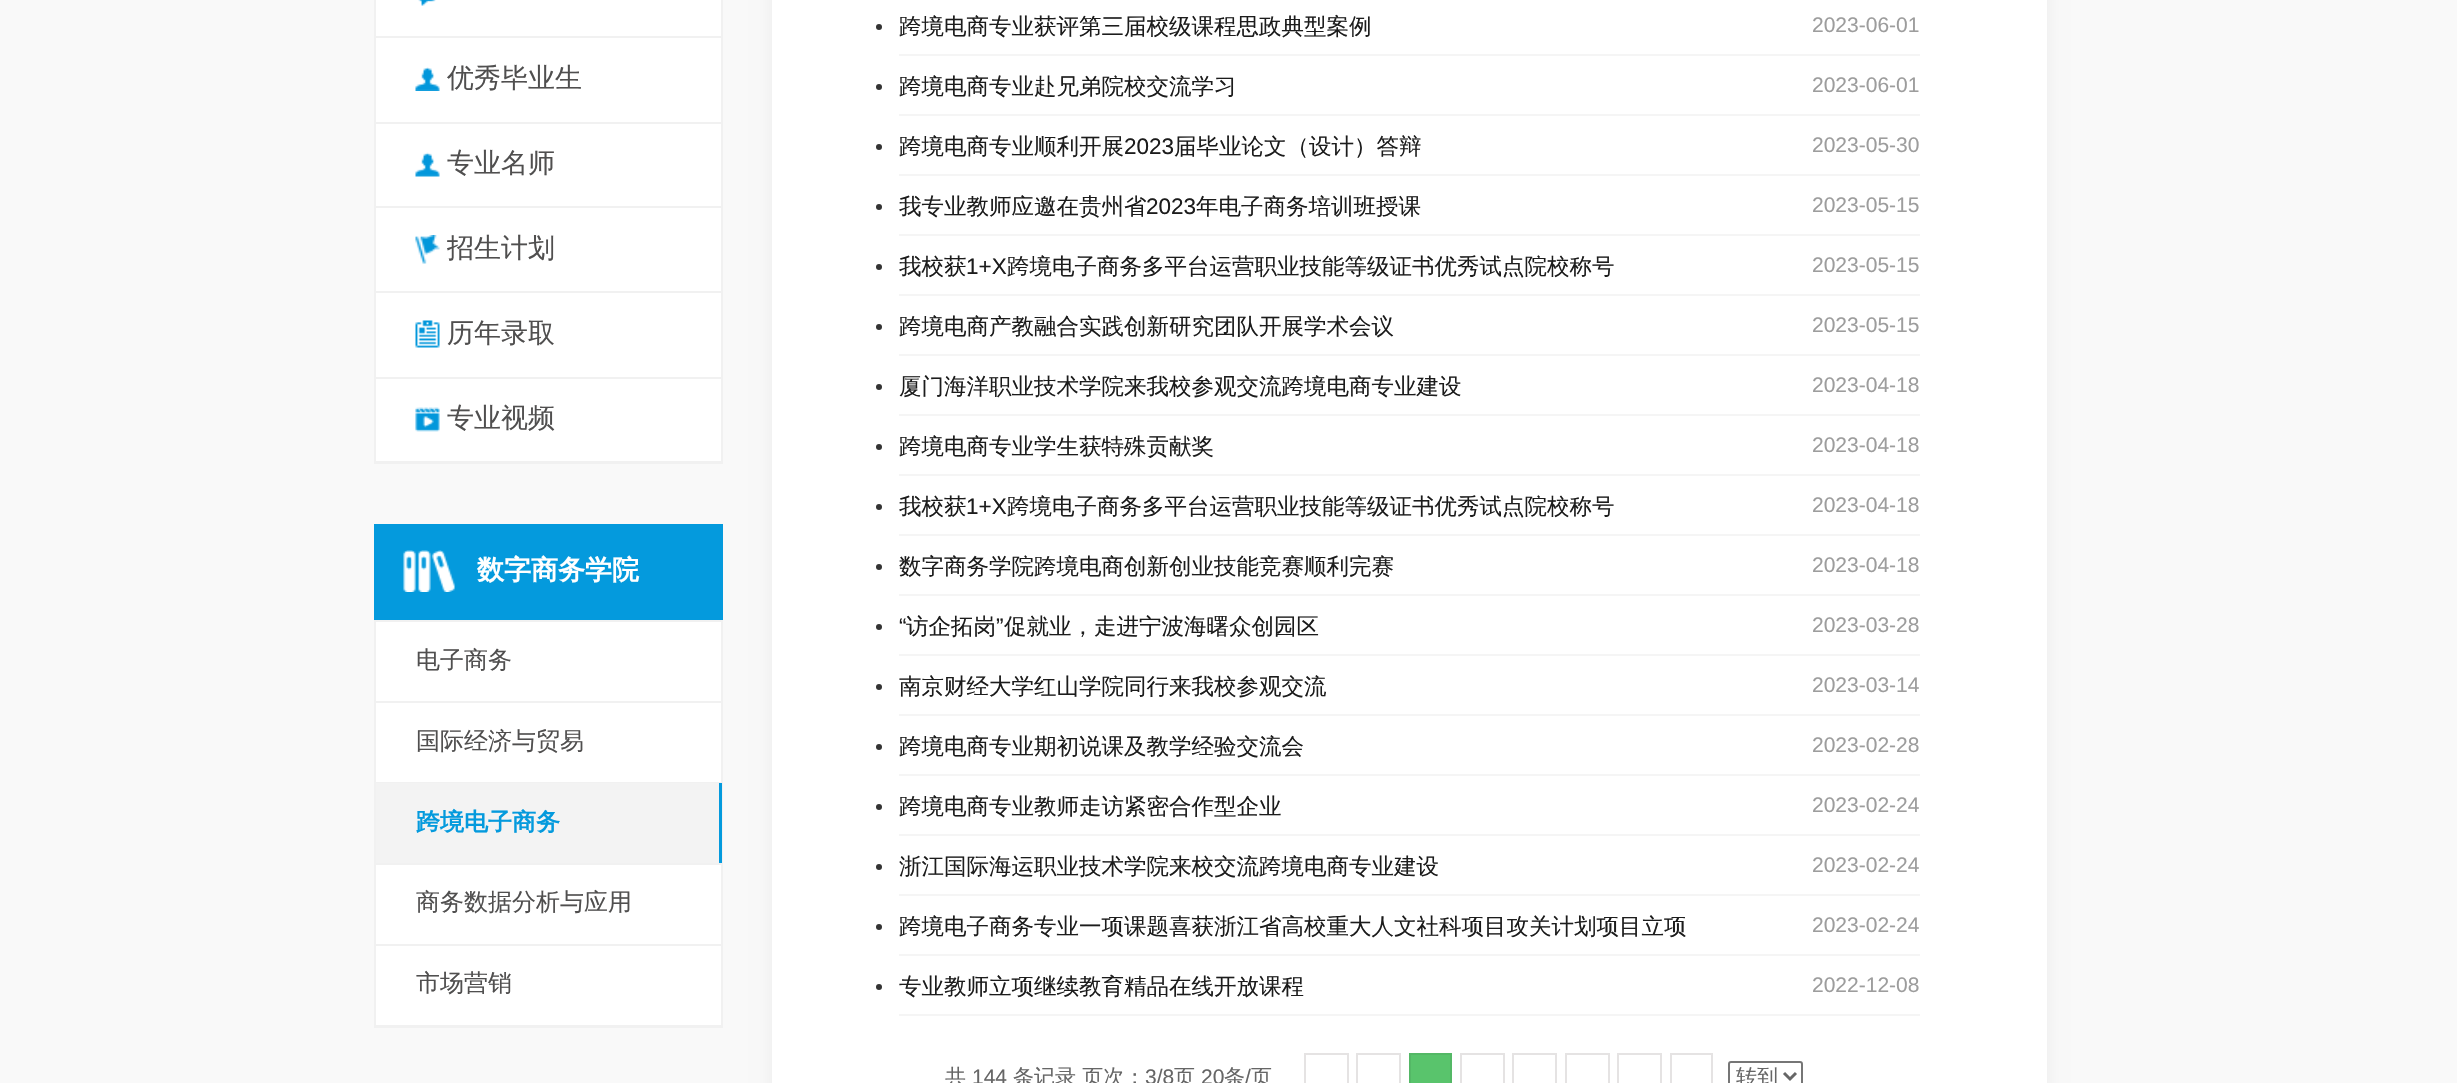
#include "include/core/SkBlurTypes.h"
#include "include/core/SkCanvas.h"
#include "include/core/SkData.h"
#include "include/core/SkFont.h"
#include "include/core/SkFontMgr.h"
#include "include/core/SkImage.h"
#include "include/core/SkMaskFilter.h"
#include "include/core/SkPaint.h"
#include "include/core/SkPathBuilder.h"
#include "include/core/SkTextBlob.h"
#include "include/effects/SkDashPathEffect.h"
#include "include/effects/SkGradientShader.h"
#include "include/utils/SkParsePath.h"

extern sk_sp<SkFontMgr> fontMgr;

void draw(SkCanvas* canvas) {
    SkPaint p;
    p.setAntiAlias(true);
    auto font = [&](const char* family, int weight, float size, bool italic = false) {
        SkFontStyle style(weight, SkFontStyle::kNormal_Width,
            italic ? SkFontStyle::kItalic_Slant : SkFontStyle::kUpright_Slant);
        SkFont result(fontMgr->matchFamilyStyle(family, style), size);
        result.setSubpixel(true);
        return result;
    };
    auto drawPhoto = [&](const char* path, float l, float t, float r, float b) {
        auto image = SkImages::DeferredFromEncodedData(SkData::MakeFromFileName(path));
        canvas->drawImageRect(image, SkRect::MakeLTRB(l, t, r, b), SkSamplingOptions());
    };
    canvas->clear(0xFFF9F9F9);
    p.setColor(0xFFFFFFFF);
    canvas->drawRect(SkRect::MakeLTRB(376, 0, 721, 461), p);
    p.setStyle(SkPaint::kStroke_Style);
    p.setStrokeWidth(2);
    p.setColor(0xFFF1F1F1);
    canvas->drawRect(SkRect::MakeLTRB(375, -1, 722, 463), p);
    p.setStyle(SkPaint::kFill_Style);
    canvas->drawRect(SkRect::MakeLTRB(375, 36, 722, 38), p);
    drawPhoto("media/1.png", 418, 0, 436, 6);
    canvas->drawRect(SkRect::MakeLTRB(375, 122, 722, 124), p);
    drawPhoto("media/2.png", 415, 67, 440, 91);
    auto font1 = font("WenQuanYi Zen Hei", 500, 27);
    p.setColor(0xFF504F4F);
    canvas->drawString("优秀毕业生", 447, 87, font1, p);
    p.setColor(0xFFF1F1F1);
    canvas->drawRect(SkRect::MakeLTRB(375, 206, 722, 208), p);
    drawPhoto("media/3.png", 415, 152, 440, 177);
    p.setColor(0xFF504F4F);
    canvas->drawString("专业名师", 447, 172, font1, p);
    p.setColor(0xFFF1F1F1);
    canvas->drawRect(SkRect::MakeLTRB(375, 291, 722, 293), p);
    drawPhoto("media/4.png", 415, 235, 440, 264);
    p.setColor(0xFF504F4F);
    canvas->drawString("招生计划", 447, 257, font1, p);
    p.setColor(0xFFF1F1F1);
    canvas->drawRect(SkRect::MakeLTRB(375, 377, 722, 379), p);
    drawPhoto("media/5.png", 415, 320, 440, 348);
    p.setColor(0xFF504F4F);
    canvas->drawString("历年录取", 447, 342, font1, p);
    p.setColor(0xFFF1F1F1);
    canvas->drawRect(SkRect::MakeLTRB(375, 461, 722, 462), p);
    drawPhoto("media/6.png", 415, 407, 440, 432);
    p.setColor(0xFF504F4F);
    canvas->drawString("专业视频", 447, 427, font1, p);
    p.setColor(0xFF049ADD);
    canvas->drawRect(SkRect::MakeLTRB(374, 524, 723, 620), p);
    drawPhoto("media/7.png", 403, 550, 455, 592);
    auto font2 = font("WenQuanYi Zen Hei", 700, 27);
    p.setColor(0xFFFFFFFF);
    canvas->drawString("数字商务学院", 477, 579, font2, p);
    canvas->drawRect(SkRect::MakeLTRB(376, 622, 721, 1025), p);
    p.setStyle(SkPaint::kStroke_Style);
    p.setColor(0xFFF1F1F1);
    canvas->drawRect(SkRect::MakeLTRB(375, 621, 722, 1027), p);
    p.setStyle(SkPaint::kFill_Style);
    canvas->drawRect(SkRect::MakeLTRB(375, 701, 722, 703), p);
    auto font3 = font("WenQuanYi Zen Hei", 500, 24);
    p.setColor(0xFF504F4F);
    canvas->drawString("电子商务", 416, 668, font3, p);
    p.setColor(0xFFF1F1F1);
    canvas->drawRect(SkRect::MakeLTRB(375, 782, 722, 783), p);
    p.setColor(0xFF504F4F);
    canvas->drawString("国际经济与贸易", 416, 749, font3, p);
    {
        const struct { float l, t, r, b; SkColor color; } items[] = {
            {376, 783, 719, 863, 0xFFF3F3F3},
            {375, 863, 722, 865, 0xFFF1F1F1},
            {719, 783, 722, 863, 0xFF049ADD},
        };
        for (auto [l, t, r, b, color] : items) {
            p.setColor(color);
            canvas->drawRect(SkRect::MakeLTRB(l, t, r, b), p);
        }
    }
    auto font4 = font("WenQuanYi Zen Hei", 700, 24);
    canvas->drawString("跨境电子商务", 416, 830, font4, p);
    p.setColor(0xFFF1F1F1);
    canvas->drawRect(SkRect::MakeLTRB(375, 944, 722, 946), p);
    p.setColor(0xFF504F4F);
    canvas->drawString("商务数据分析与应用", 416, 910, font3, p);
    p.setColor(0xFFF1F1F1);
    canvas->drawRect(SkRect::MakeLTRB(375, 1025, 722, 1026), p);
    p.setColor(0xFF504F4F);
    canvas->drawString("市场营销", 416, 991, font3, p);
    p.setColor(0xFFEEEEEE);
    p.setMaskFilter(SkMaskFilter::MakeBlur(kNormal_SkBlurStyle, 7.5f));
    canvas->drawRect(SkRect::MakeLTRB(770, -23, 2049, 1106), p);
    p.setMaskFilter(nullptr);
    p.setColor(0xFFFFFFFF);
    canvas->drawRect(SkRect::MakeLTRB(772, 0, 2047, 1083), p);
    p.setColor(0xFF333333);
    canvas->drawCircle(879, 27, 3, p);
    p.setColor(0xFFF5F5F5);
    canvas->drawRect(SkRect::MakeLTRB(899, 54, 1920, 56), p);
    auto font5 = font("WenQuanYi Zen Hei", 500, 22.5f);
    p.setColor(0xFF1C1C1C);
    canvas->drawString("跨境电商专业获评第三届校级课程思政典型案例", 899, 34, font5, p);
    auto font6 = font("Liberation Sans", 400, 21);
    p.setColor(0xFF9D9D9D);
    canvas->drawString("2023-06-01", 1812, 32, font6, p);
    p.setColor(0xFF333333);
    canvas->drawCircle(879, 87, 3, p);
    p.setColor(0xFFF5F5F5);
    canvas->drawRect(SkRect::MakeLTRB(899, 114, 1920, 116), p);
    p.setColor(0xFF1C1C1C);
    canvas->drawString("跨境电商专业赴兄弟院校交流学习", 899, 94, font5, p);
    p.setColor(0xFF9D9D9D);
    canvas->drawString("2023-06-01", 1812, 92, font6, p);
    p.setColor(0xFF333333);
    canvas->drawCircle(879, 147, 3, p);
    p.setColor(0xFFF5F5F5);
    canvas->drawRect(SkRect::MakeLTRB(899, 174, 1920, 176), p);
    p.setColor(0xFF1C1C1C);
    canvas->drawString("跨境电商专业顺利开展", 899, 154, font5, p);
    auto font7 = font("Liberation Sans", 400, 22.5f);
    canvas->drawString("2023", 1124, 154, font7, p);
    canvas->drawString("届毕业论文（设计）答辩", 1174, 154, font5, p);
    p.setColor(0xFF9D9D9D);
    canvas->drawString("2023-05-30", 1812, 152, font6, p);
    p.setColor(0xFF333333);
    canvas->drawCircle(879, 207, 3, p);
    p.setColor(0xFFF5F5F5);
    canvas->drawRect(SkRect::MakeLTRB(899, 234, 1920, 236), p);
    p.setColor(0xFF1C1C1C);
    canvas->drawString("我专业教师应邀在贵州省", 899, 214, font5, p);
    canvas->drawString("2023", 1146, 214, font7, p);
    canvas->drawString("年电子商务培训班授课", 1196, 214, font5, p);
    p.setColor(0xFF9D9D9D);
    canvas->drawString("2023-05-15", 1812, 212, font6, p);
    p.setColor(0xFF333333);
    canvas->drawCircle(879, 267, 3, p);
    p.setColor(0xFFF5F5F5);
    canvas->drawRect(SkRect::MakeLTRB(899, 294, 1920, 296), p);
    p.setColor(0xFF1C1C1C);
    canvas->drawString("我校获", 899, 274, font5, p);
    canvas->drawString("1+X", 966, 274, font7, p);
    canvas->drawString("跨境电子商务多平台运营职业技能等级证书优秀试点院校称号", 1007, 274, font5, p);
    p.setColor(0xFF9D9D9D);
    canvas->drawString("2023-05-15", 1812, 272, font6, p);
    p.setColor(0xFF333333);
    canvas->drawCircle(879, 327, 3, p);
    p.setColor(0xFFF5F5F5);
    canvas->drawRect(SkRect::MakeLTRB(899, 354, 1920, 356), p);
    p.setColor(0xFF1C1C1C);
    canvas->drawString("跨境电商产教融合实践创新研究团队开展学术会议", 899, 334, font5, p);
    p.setColor(0xFF9D9D9D);
    canvas->drawString("2023-05-15", 1812, 332, font6, p);
    p.setColor(0xFF333333);
    canvas->drawCircle(879, 387, 3, p);
    p.setColor(0xFFF5F5F5);
    canvas->drawRect(SkRect::MakeLTRB(899, 414, 1920, 416), p);
    p.setColor(0xFF1C1C1C);
    canvas->drawString("厦门海洋职业技术学院来我校参观交流跨境电商专业建设", 899, 394, font5, p);
    p.setColor(0xFF9D9D9D);
    canvas->drawString("2023-04-18", 1812, 392, font6, p);
    p.setColor(0xFF333333);
    canvas->drawCircle(879, 447, 3, p);
    p.setColor(0xFFF5F5F5);
    canvas->drawRect(SkRect::MakeLTRB(899, 474, 1920, 476), p);
    p.setColor(0xFF1C1C1C);
    canvas->drawString("跨境电商专业学生获特殊贡献奖", 899, 454, font5, p);
    p.setColor(0xFF9D9D9D);
    canvas->drawString("2023-04-18", 1812, 452, font6, p);
    p.setColor(0xFF333333);
    canvas->drawCircle(879, 507, 3, p);
    p.setColor(0xFFF5F5F5);
    canvas->drawRect(SkRect::MakeLTRB(899, 534, 1920, 536), p);
    p.setColor(0xFF1C1C1C);
    canvas->drawString("我校获", 899, 514, font5, p);
    canvas->drawString("1+X", 966, 514, font7, p);
    canvas->drawString("跨境电子商务多平台运营职业技能等级证书优秀试点院校称号", 1007, 514, font5, p);
    p.setColor(0xFF9D9D9D);
    canvas->drawString("2023-04-18", 1812, 512, font6, p);
    p.setColor(0xFF333333);
    canvas->drawCircle(879, 567, 3, p);
    p.setColor(0xFFF5F5F5);
    canvas->drawRect(SkRect::MakeLTRB(899, 594, 1920, 596), p);
    p.setColor(0xFF1C1C1C);
    canvas->drawString("数字商务学院跨境电商创新创业技能竞赛顺利完赛", 899, 574, font5, p);
    p.setColor(0xFF9D9D9D);
    canvas->drawString("2023-04-18", 1812, 572, font6, p);
    p.setColor(0xFF333333);
    canvas->drawCircle(879, 627, 3, p);
    p.setColor(0xFFF5F5F5);
    canvas->drawRect(SkRect::MakeLTRB(899, 654, 1920, 656), p);
    p.setColor(0xFF1C1C1C);
    canvas->drawString("“", 899, 634, font7, p);
    canvas->drawString("访企拓岗", 906, 634, font5, p);
    canvas->drawString("”", 996, 634, font7, p);
    canvas->drawString("促就业，走进宁波海曙众创园区", 1004, 634, font5, p);
    p.setColor(0xFF9D9D9D);
    canvas->drawString("2023-03-28", 1812, 632, font6, p);
    p.setColor(0xFF333333);
    canvas->drawCircle(879, 687, 3, p);
    p.setColor(0xFFF5F5F5);
    canvas->drawRect(SkRect::MakeLTRB(899, 714, 1920, 716), p);
    p.setColor(0xFF1C1C1C);
    canvas->drawString("南京财经大学红山学院同行来我校参观交流", 899, 694, font5, p);
    p.setColor(0xFF9D9D9D);
    canvas->drawString("2023-03-14", 1812, 692, font6, p);
    p.setColor(0xFF333333);
    canvas->drawCircle(879, 747, 3, p);
    p.setColor(0xFFF5F5F5);
    canvas->drawRect(SkRect::MakeLTRB(899, 774, 1920, 776), p);
    p.setColor(0xFF1C1C1C);
    canvas->drawString("跨境电商专业期初说课及教学经验交流会", 899, 754, font5, p);
    p.setColor(0xFF9D9D9D);
    canvas->drawString("2023-02-28", 1812, 752, font6, p);
    p.setColor(0xFF333333);
    canvas->drawCircle(879, 807, 3, p);
    p.setColor(0xFFF5F5F5);
    canvas->drawRect(SkRect::MakeLTRB(899, 834, 1920, 836), p);
    p.setColor(0xFF1C1C1C);
    canvas->drawString("跨境电商专业教师走访紧密合作型企业", 899, 814, font5, p);
    p.setColor(0xFF9D9D9D);
    canvas->drawString("2023-02-24", 1812, 812, font6, p);
    p.setColor(0xFF333333);
    canvas->drawCircle(879, 867, 3, p);
    p.setColor(0xFFF5F5F5);
    canvas->drawRect(SkRect::MakeLTRB(899, 894, 1920, 896), p);
    p.setColor(0xFF1C1C1C);
    canvas->drawString("浙江国际海运职业技术学院来校交流跨境电商专业建设", 899, 874, font5, p);
    p.setColor(0xFF9D9D9D);
    canvas->drawString("2023-02-24", 1812, 872, font6, p);
    p.setColor(0xFF333333);
    canvas->drawCircle(879, 927, 3, p);
    p.setColor(0xFFF5F5F5);
    canvas->drawRect(SkRect::MakeLTRB(899, 954, 1920, 956), p);
    p.setColor(0xFF1C1C1C);
    canvas->drawString("跨境电子商务专业一项课题喜获浙江省高校重大人文社科项目攻关计划项目立项", 899, 934, font5, p);
    p.setColor(0xFF9D9D9D);
    canvas->drawString("2023-02-24", 1812, 932, font6, p);
    p.setColor(0xFF333333);
    canvas->drawCircle(879, 987, 3, p);
    p.setColor(0xFFF5F5F5);
    canvas->drawRect(SkRect::MakeLTRB(899, 1014, 1920, 1016), p);
    p.setColor(0xFF1C1C1C);
    canvas->drawString("专业教师立项继续教育精品在线开放课程", 899, 994, font5, p);
    p.setColor(0xFF9D9D9D);
    canvas->drawString("2022-12-08", 1812, 992, font6, p);
    auto font8 = font("WenQuanYi Zen Hei", 500, 21);
    p.setColor(0xFF666666);
    canvas->drawString("共", 945, 1084, font8, p);
    canvas->drawString("144", 972, 1084, font6, p);
    canvas->drawString("条记录 页次：", 1013, 1084, font8, p);
    canvas->drawString("3/8", 1145, 1084, font6, p);
    canvas->drawString("页", 1174, 1084, font8, p);
    canvas->drawString("20", 1201, 1084, font6, p);
    canvas->drawString("条", 1224, 1084, font8, p);
    canvas->drawString("/", 1245, 1084, font6, p);
    canvas->drawString("页", 1251, 1084, font8, p);
    p.setStyle(SkPaint::kStroke_Style);
    p.setColor(0xFFE5E3E3);
    canvas->drawRect(SkRect::MakeLTRB(1305, 1054, 1348, 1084), p);
    canvas->drawRect(SkRect::MakeLTRB(1357, 1054, 1400, 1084), p);
    p.setStyle(SkPaint::kFill_Style);
    p.setColor(0xFF59C46C);
    canvas->drawRect(SkRect::MakeLTRB(1410, 1054, 1451, 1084), p);
    p.setStyle(SkPaint::kStroke_Style);
    p.setColor(0xFF54B866);
    canvas->drawRect(SkRect::MakeLTRB(1410, 1054, 1451, 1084), p);
    p.setColor(0xFFE5E3E3);
    canvas->drawRect(SkRect::MakeLTRB(1461, 1054, 1504, 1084), p);
    canvas->drawRect(SkRect::MakeLTRB(1513, 1054, 1556, 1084), p);
    canvas->drawRect(SkRect::MakeLTRB(1566, 1054, 1609, 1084), p);
    canvas->drawRect(SkRect::MakeLTRB(1618, 1054, 1661, 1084), p);
    canvas->drawRect(SkRect::MakeLTRB(1671, 1054, 1712, 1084), p);
    p.setColor(0xFF767676);
    canvas->drawRoundRect(SkRect::MakeLTRB(1729, 1062, 1802, 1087), 2, 2, p);
    p.setStrokeWidth(3);
    p.setColor(0xFF666666);
    canvas->drawPath(SkPathBuilder().moveTo(1784, 1073).lineTo(1790, 1079).lineTo(1796, 1073).detach(), p);
    p.setStyle(SkPaint::kFill_Style);
    canvas->drawString("转到", 1736, 1084, font8, p);
}
